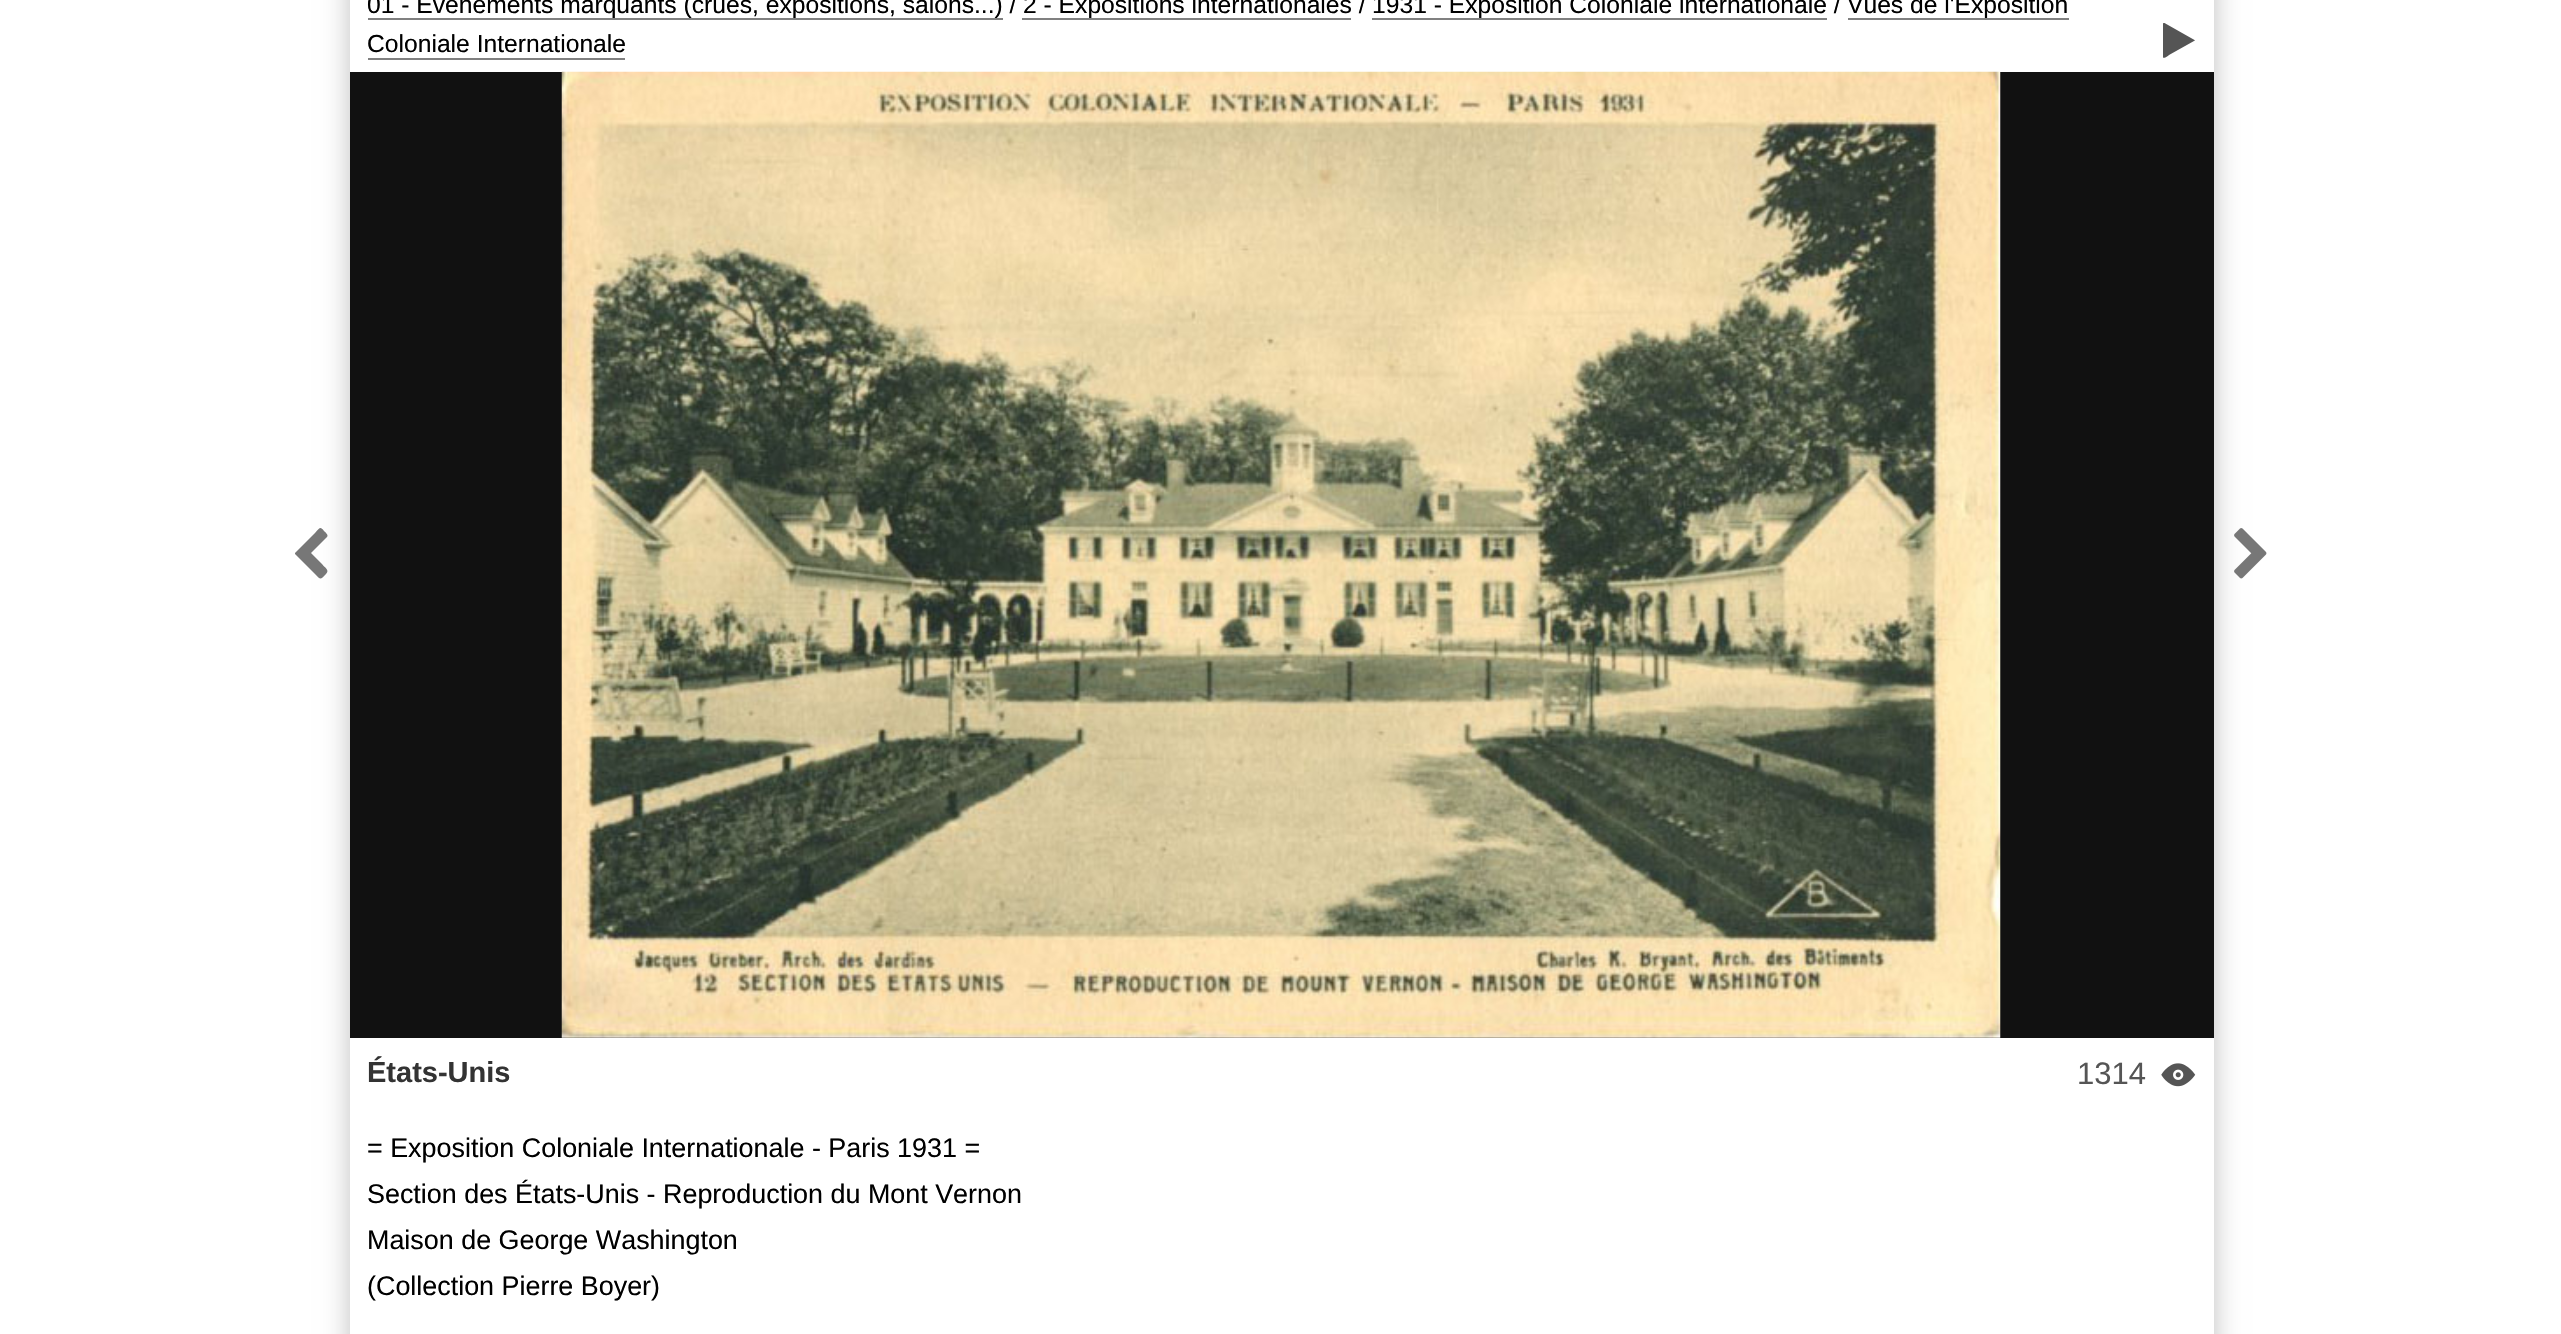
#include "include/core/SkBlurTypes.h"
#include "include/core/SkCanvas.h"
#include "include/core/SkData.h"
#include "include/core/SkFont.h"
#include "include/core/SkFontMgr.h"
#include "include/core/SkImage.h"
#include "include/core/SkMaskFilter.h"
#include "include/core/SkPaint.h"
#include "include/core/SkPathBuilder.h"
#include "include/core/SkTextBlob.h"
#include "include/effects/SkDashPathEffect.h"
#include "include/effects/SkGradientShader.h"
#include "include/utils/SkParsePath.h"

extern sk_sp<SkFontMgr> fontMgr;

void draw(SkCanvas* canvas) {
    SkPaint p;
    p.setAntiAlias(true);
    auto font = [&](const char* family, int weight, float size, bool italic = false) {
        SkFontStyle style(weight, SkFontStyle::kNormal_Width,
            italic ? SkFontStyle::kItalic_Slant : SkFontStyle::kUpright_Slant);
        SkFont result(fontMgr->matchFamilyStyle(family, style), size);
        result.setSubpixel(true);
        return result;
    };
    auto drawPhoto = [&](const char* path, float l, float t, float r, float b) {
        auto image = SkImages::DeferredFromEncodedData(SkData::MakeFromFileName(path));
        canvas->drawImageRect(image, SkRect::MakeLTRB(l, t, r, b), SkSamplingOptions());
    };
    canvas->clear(0xFFFFFFFF);
    p.setColor(0xFFC0C0C0);
    p.setMaskFilter(SkMaskFilter::MakeBlur(kNormal_SkBlurStyle, 13));
    canvas->drawRect(SkRect::MakeLTRB(350, -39, 2214, 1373), p);
    p.setMaskFilter(nullptr);
    p.setColor(0xFFFFFFFF);
    canvas->drawRect(SkRect::MakeLTRB(350, 0, 2214, 1334), p);
    p.setColor(0xFF808080);
    canvas->drawRect(SkRect::MakeLTRB(368, 18, 1003, 20), p);
    auto font1 = font("Liberation Sans", 400, 24.65f);
    p.setColor(0xFF000000);
    canvas->drawString("01 - Evénements marquants (crues, expositions, salons...) /", 367, 13, font1, p);
    p.setColor(0xFF808080);
    canvas->drawRect(SkRect::MakeLTRB(1022, 18, 1351, 20), p);
    p.setColor(0xFF000000);
    canvas->drawString("2 - Expositions internationales /", 1023, 13, font1, p);
    p.setColor(0xFF808080);
    canvas->drawRect(SkRect::MakeLTRB(1372, 18, 1827, 20), p);
    p.setColor(0xFF000000);
    canvas->drawString("1931 - Exposition Coloniale internationale /", 1372, 13, font1, p);
    p.setColor(0xFF808080);
    canvas->drawRect(SkRect::MakeLTRB(1848, 18, 2069, 20), p);
    p.setColor(0xFF000000);
    canvas->drawString("Vues de l'Exposition", 1847, 13, font1, p);
    canvas->drawString("Coloniale Internationale", 367, 52, font1, p);
    p.setColor(0xFF808080);
    canvas->drawRect(SkRect::MakeLTRB(368, 58, 625, 60), p);
    p.setColor(0xFF555555);
    canvas->drawPath(SkPathBuilder().moveTo(2194, 41).lineTo(2169, 55).cubicTo(2169, 55.5f, 2164, 59, 2163, 57.5f).lineTo(2163, 23.5f).cubicTo(2163, 23, 2164, 23, 2164.5f, 23).lineTo(2194.5f, 40).cubicTo(2195, 40.5f, 2194.5f, 41, 2194, 41).close().detach(), p);
    p.setColor(0xFF111111);
    canvas->drawRect(SkRect::MakeLTRB(350, 72, 2214, 1038), p);
    p.setColor(0xFF777777);
    canvas->drawPath(SkPathBuilder().moveTo(327, 537).lineTo(311, 553).lineTo(322, 564).cubicTo(325, 568, 330, 570, 326, 574).cubicTo(320, 580, 321, 580, 315, 574).lineTo(295, 554).lineTo(295, 553).lineTo(315, 533).cubicTo(320, 528, 320, 526, 324, 531).cubicTo(325, 532, 329, 535, 327, 537).close().detach(), p);
    drawPhoto("media/1.png", 561, 71, 2001, 1038);
    drawPhoto("media/2.png", 2234, 528, 2267, 579);
    auto font2 = font("Liberation Sans", 700, 29);
    p.setColor(0xFF333333);
    canvas->drawString("États-Unis", 367, 1082, font2, p);
    auto font3 = font("Liberation Sans", 400, 31);
    p.setColor(0xFF555555);
    canvas->drawString("1314", 2077, 1084, font3, p);
    drawPhoto("media/3.png", 2161, 1063, 2196, 1087);
    auto font4 = font("Liberation Sans", 400, 26.9f);
    p.setColor(0xFF000000);
    {
        const struct { const char* s; float x, y; } items[] = {
            {"= Exposition Coloniale Internationale - Paris 1931 =", 367, 1157},
            {"Section des États-Unis - Reproduction du Mont Vernon", 367, 1203},
            {"Maison de George Washington", 367, 1249},
            {"(Collection Pierre Boyer)", 367, 1295},
        };
        for (auto [s, x, y] : items) {
            canvas->drawString(s, x, y, font4, p);
        }
    }
}
